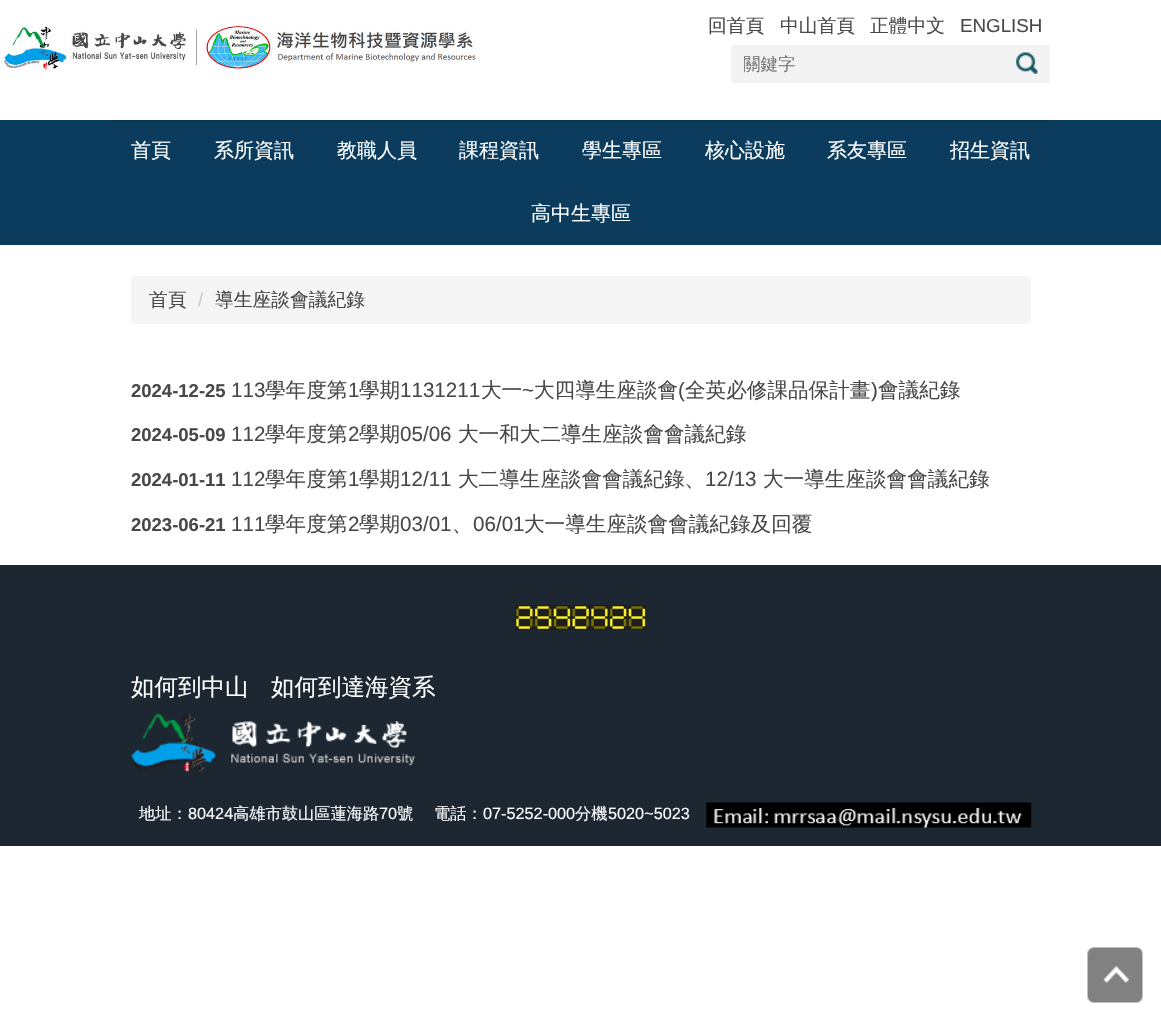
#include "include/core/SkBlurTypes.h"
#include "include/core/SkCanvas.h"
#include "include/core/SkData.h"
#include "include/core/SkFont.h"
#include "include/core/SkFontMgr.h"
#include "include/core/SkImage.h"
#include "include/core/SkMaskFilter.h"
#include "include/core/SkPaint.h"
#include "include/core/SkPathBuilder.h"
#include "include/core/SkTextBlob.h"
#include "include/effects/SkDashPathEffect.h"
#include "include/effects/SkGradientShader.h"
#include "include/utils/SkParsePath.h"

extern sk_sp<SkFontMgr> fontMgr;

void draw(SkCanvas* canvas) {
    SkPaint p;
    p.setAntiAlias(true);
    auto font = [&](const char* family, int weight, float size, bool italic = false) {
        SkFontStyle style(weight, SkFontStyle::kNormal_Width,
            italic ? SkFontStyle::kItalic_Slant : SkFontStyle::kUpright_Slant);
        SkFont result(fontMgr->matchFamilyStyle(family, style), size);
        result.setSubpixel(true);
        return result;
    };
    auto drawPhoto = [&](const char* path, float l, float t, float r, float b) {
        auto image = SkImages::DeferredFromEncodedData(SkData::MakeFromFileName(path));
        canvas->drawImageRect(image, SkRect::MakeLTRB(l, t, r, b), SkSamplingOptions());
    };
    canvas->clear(0xFFFFFFFF);
    p.setColor(0xFF0B3C5D);
    canvas->drawRect(SkRect::MakeLTRB(0, 120, 1161, 245), p);
    p.setColor(0xFF0A3958);
    canvas->drawRect(SkRect::MakeLTRB(113, 120, 1050, 121), p);
    auto font1 = font("WenQuanYi Zen Hei", 500, 18.75f);
    p.setColor(0xFF484848);
    {
        const struct { const char* s; float x, y; } items[] = {
            {"回首頁", 708, 32},
            {"中山首頁", 780, 32},
            {"正體中文", 870, 32},
        };
        for (auto [s, x, y] : items) {
            canvas->drawString(s, x, y, font1, p);
        }
    }
    auto font2 = font("Liberation Sans", 400, 18.75f);
    canvas->drawString("ENGLISH", 960, 32, font2, p);
    p.setColor(0xFFF3F3F3);
    canvas->drawRect(SkRect::MakeLTRB(731, 45, 1050, 83), p);
    canvas->save();
    canvas->clipRect(SkRect::MakeLTRB(744, 54, 994, 76));
    auto font3 = font("WenQuanYi Zen Hei", 500, 17.5f);
    p.setColor(0xFF777777);
    canvas->drawString("關鍵字", 743, 70, font3, p);
    canvas->restore();
    drawPhoto("media/1.png", 1016, 52, 1038, 74);
    auto font4 = font("WenQuanYi Zen Hei", 500, 20);
    p.setColor(0xFFFFFFFF);
    {
        const struct { const char* s; float x, y; } items[] = {
            {"首頁", 131, 157},
            {"系所資訊", 214, 157},
            {"教職人員", 337, 157},
            {"課程資訊", 459, 157},
            {"學生專區", 582, 157},
            {"核心設施", 705, 157},
            {"系友專區", 827, 157},
            {"招生資訊", 950, 157},
            {"高中生專區", 531, 220},
        };
        for (auto [s, x, y] : items) {
            canvas->drawString(s, x, y, font4, p);
        }
    }
    drawPhoto("media/2.png", 3, 25, 477, 70);
    drawPhoto("media/3.png", 1087, 947, 1143, 1003);
    p.setColor(0xFFF5F5F5);
    canvas->drawRoundRect(SkRect::MakeLTRB(131, 276, 1031, 324), 5, 5, p);
    p.setColor(0xFF484848);
    canvas->drawString("首頁", 149, 306, font1, p);
    p.setColor(0xFFCCCCCC);
    canvas->drawString("/", 198, 306, font2, p);
    p.setColor(0xFF484848);
    canvas->drawString("導生座談會議紀錄", 215, 306, font1, p);
    auto font5 = font("Liberation Sans", 700, 18.5f);
    canvas->drawString("2024-12-25", 131, 397, font5, p);
    auto font6 = font("Liberation Sans", 400, 20.6f);
    canvas->drawString("113", 231, 397, font6, p);
    auto font7 = font("WenQuanYi Zen Hei", 500, 20.6f);
    canvas->drawString("學年度第", 265, 397, font7, p);
    canvas->drawString("1", 348, 397, font6, p);
    canvas->drawString("學期", 359, 397, font7, p);
    canvas->drawString("1131211", 400, 397, font6, p);
    canvas->drawString("大一", 481, 397, font7, p);
    canvas->drawString("~", 522, 397, font6, p);
    canvas->drawString("大四導生座談會", 534, 397, font7, p);
    canvas->drawString("(", 678, 397, font6, p);
    canvas->drawString("全英必修課品保計畫", 685, 397, font7, p);
    canvas->drawString(")", 871, 397, font6, p);
    canvas->drawString("會議紀錄", 878, 397, font7, p);
    canvas->drawString("2024-05-09", 131, 441, font5, p);
    canvas->drawString("112", 231, 441, font6, p);
    canvas->drawString("學年度第", 265, 441, font7, p);
    canvas->drawString("2", 348, 441, font6, p);
    canvas->drawString("學期", 359, 441, font7, p);
    canvas->drawString("05/06", 400, 441, font6, p);
    canvas->drawString("大一和大二導生座談會會議紀錄", 458, 441, font7, p);
    canvas->drawString("2024-01-11", 131, 486, font5, p);
    canvas->drawString("112", 231, 486, font6, p);
    canvas->drawString("學年度第", 265, 486, font7, p);
    canvas->drawString("1", 348, 486, font6, p);
    canvas->drawString("學期", 359, 486, font7, p);
    canvas->drawString("12/11", 400, 486, font6, p);
    canvas->drawString("大二導生座談會會議紀錄、", 458, 486, font7, p);
    canvas->drawString("12/13", 705, 486, font6, p);
    canvas->drawString("大一導生座談會會議紀錄", 763, 486, font7, p);
    canvas->drawString("2023-06-21", 131, 531, font5, p);
    canvas->drawString("111", 231, 531, font6, p);
    canvas->drawString("學年度第", 265, 531, font7, p);
    canvas->drawString("2", 348, 531, font6, p);
    canvas->drawString("學期", 359, 531, font7, p);
    canvas->drawString("03/01", 400, 531, font6, p);
    canvas->drawString("、", 452, 531, font7, p);
    canvas->drawString("06/01", 473, 531, font6, p);
    canvas->drawString("大一導生座談會會議紀錄及回覆", 524, 531, font7, p);
    p.setColor(0xFF1D2731);
    canvas->drawRect(SkRect::MakeLTRB(0, 565, 1161, 846), p);
    drawPhoto("media/4.png", 515, 605, 534, 630);
    drawPhoto("media/5.png", 534, 605, 553, 630);
    drawPhoto("media/6.png", 552, 605, 572, 630);
    drawPhoto("media/7.png", 571, 605, 590, 630);
    drawPhoto("media/8.png", 590, 605, 609, 630);
    drawPhoto("media/9.png", 609, 605, 628, 630);
    drawPhoto("media/10.png", 627, 605, 647, 630);
    auto font8 = font("WenQuanYi Zen Hei", 500, 23.5f);
    p.setColor(0xFFFFFFFF);
    canvas->drawString("如何到中山", 131, 695, font8, p);
    canvas->drawString("如何到達海資系", 271, 695, font8, p);
    drawPhoto("media/11.png", 131, 713, 416, 772);
    auto font9 = font("WenQuanYi Zen Hei", 500, 16.25f);
    canvas->drawString("地址：", 139, 819, font9, p);
    auto font10 = font("Liberation Sans", 400, 16.25f);
    canvas->drawString("80424", 188, 819, font10, p);
    canvas->drawString("高雄市鼓山區蓮海路", 233, 819, font9, p);
    canvas->drawString("70", 379, 819, font10, p);
    canvas->drawString("號", 397, 819, font9, p);
    canvas->drawString("電話：", 434, 819, font9, p);
    canvas->drawString("07-5252-000", 483, 819, font10, p);
    canvas->drawString("分機", 575, 819, font9, p);
    canvas->drawString("5020~5023", 608, 819, font10, p);
    drawPhoto("media/12.png", 706, 802, 1032, 828);
}
